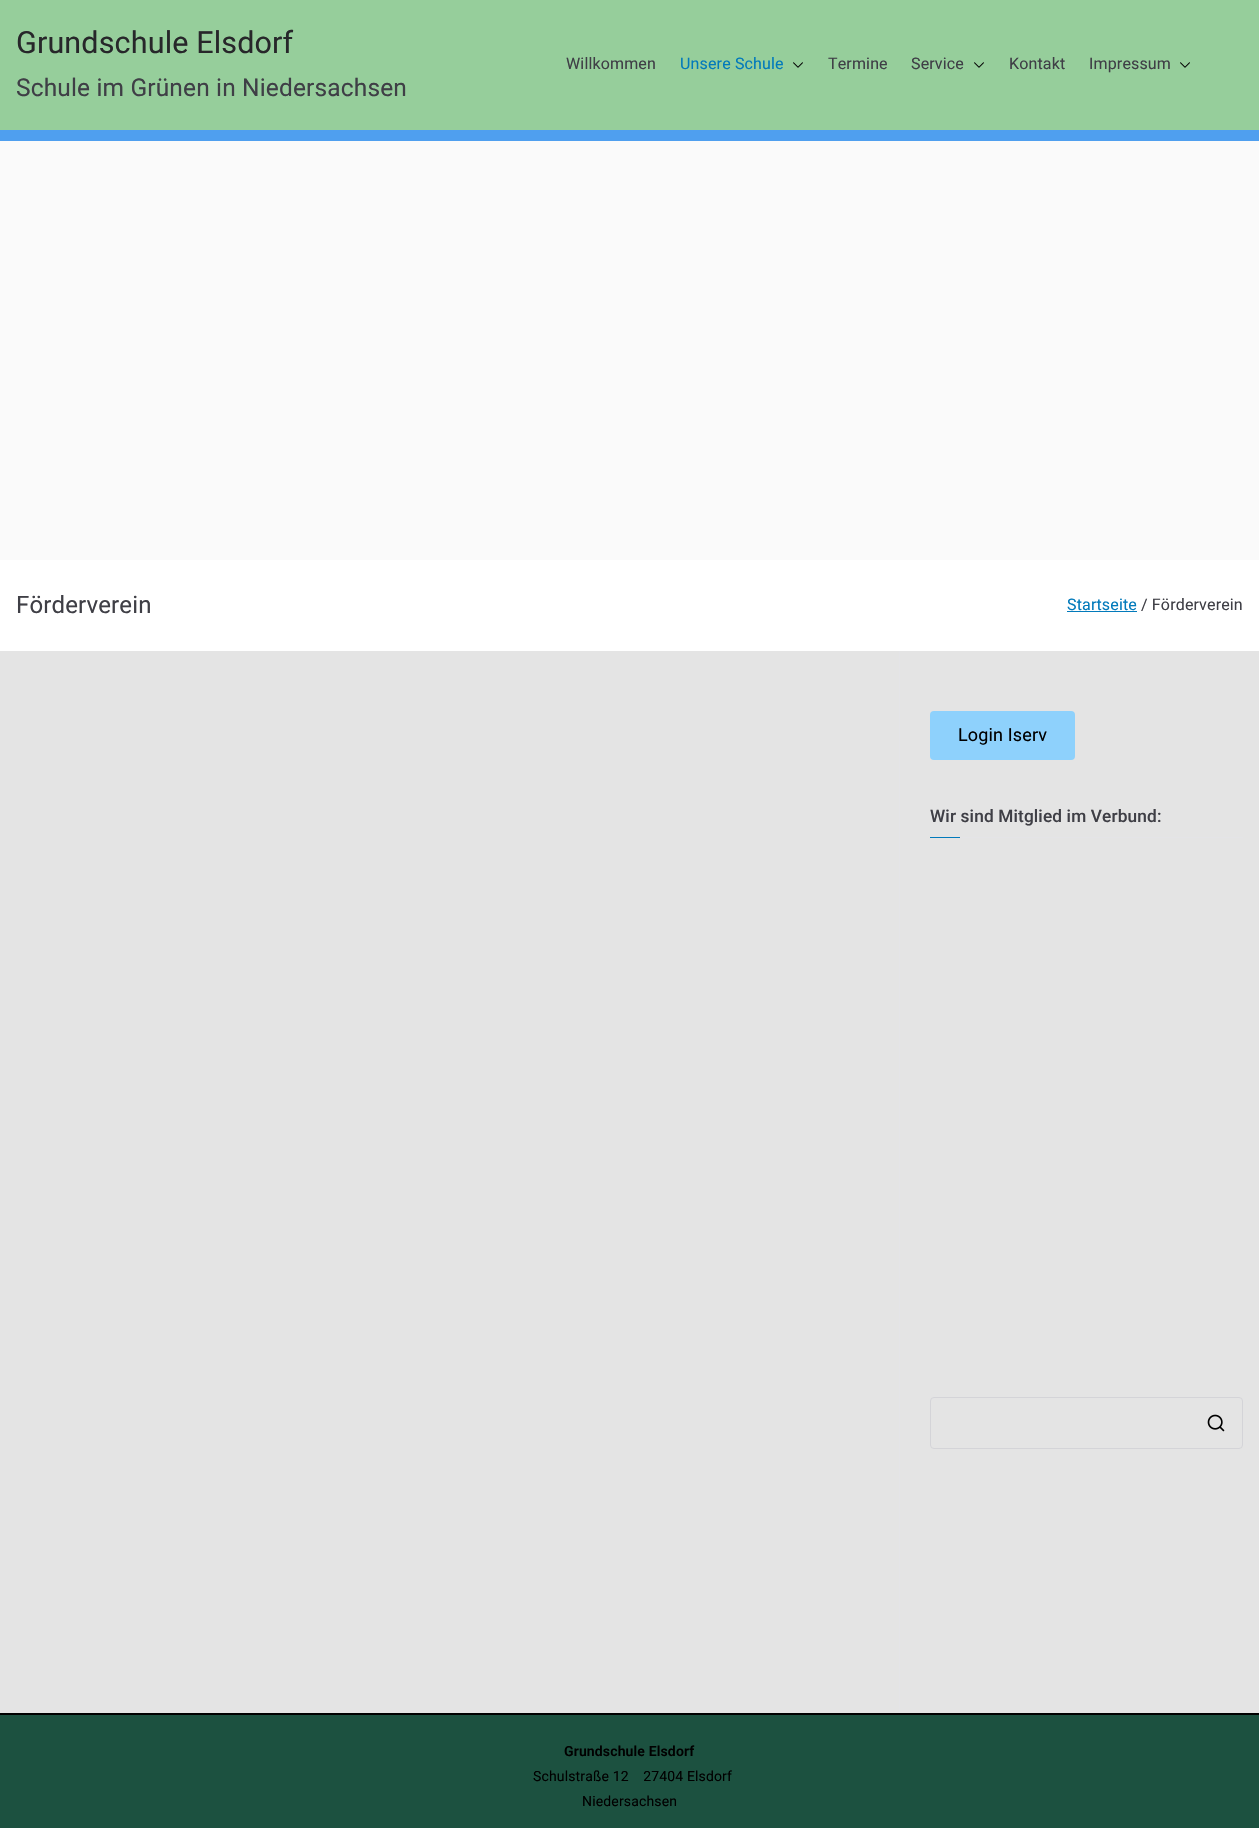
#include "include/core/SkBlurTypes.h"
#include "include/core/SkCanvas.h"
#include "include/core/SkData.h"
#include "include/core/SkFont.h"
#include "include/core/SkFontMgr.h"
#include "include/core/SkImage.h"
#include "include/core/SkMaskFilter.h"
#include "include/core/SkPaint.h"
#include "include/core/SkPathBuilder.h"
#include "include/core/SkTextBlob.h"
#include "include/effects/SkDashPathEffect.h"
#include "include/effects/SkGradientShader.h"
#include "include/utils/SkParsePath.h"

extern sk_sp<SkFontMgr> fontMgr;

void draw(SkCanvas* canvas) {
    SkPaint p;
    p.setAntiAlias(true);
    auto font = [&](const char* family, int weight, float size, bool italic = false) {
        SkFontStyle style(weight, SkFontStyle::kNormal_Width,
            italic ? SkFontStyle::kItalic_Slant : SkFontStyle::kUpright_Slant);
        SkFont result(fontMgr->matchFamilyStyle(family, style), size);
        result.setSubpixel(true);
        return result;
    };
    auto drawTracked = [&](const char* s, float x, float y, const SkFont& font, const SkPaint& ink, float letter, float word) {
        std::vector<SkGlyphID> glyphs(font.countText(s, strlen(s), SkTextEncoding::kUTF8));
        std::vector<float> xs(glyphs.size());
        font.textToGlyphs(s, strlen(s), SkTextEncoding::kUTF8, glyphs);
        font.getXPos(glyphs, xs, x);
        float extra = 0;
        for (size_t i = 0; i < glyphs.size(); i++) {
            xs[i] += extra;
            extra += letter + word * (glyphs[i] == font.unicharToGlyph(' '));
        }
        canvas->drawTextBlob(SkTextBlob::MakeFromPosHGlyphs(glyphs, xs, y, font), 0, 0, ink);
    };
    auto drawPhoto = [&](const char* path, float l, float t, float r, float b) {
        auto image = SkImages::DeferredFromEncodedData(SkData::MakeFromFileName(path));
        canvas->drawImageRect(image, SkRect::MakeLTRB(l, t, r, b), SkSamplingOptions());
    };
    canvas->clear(0xFFFAFAFA);
    p.setColor(0xFF4F9FEF);
    canvas->drawRect(SkRect::MakeLTRB(0, 130, 1259, 141), p);
    p.setColor(0xFF96CE9B);
    canvas->drawRect(SkRect::MakeLTRB(0, 0, 1259, 130), p);
    auto font1 = font("Roboto", 400, 30.5f);
    p.setColor(0xFF27272A);
    drawTracked("Grundschule Elsdorf", 16, 53, font1, p, 0.15f, 0);
    auto font2 = font("Roboto", 400, 24.5f);
    p.setColor(0xFF3F3F46);
    drawTracked("Schule im Grünen in Niedersachsen", 16, 96, font2, p, 0.15f, 0);
    auto font3 = font("Roboto", 400, 16);
    drawTracked("Willkommen", 566, 69, font3, p, 0.15f, 0);
    p.setColor(0xFF027ABB);
    drawTracked("Unsere Schule", 680, 69, font3, p, 0.15f, 0);
    drawPhoto("media/1.png", 793, 62, 803, 68);
    p.setColor(0xFF3F3F46);
    drawTracked("Termine", 828, 69, font3, p, 0.15f, 0);
    drawTracked("Service", 911, 69, font3, p, 0.15f, 0);
    drawPhoto("media/1.png", 974, 62, 984, 68);
    drawTracked("Kontakt", 1009, 69, font3, p, 0.15f, 0);
    drawTracked("Impressum", 1089, 69, font3, p, 0.15f, 0);
    drawPhoto("media/1.png", 1180, 62, 1190, 68);
    p.setColor(0xFFFFFFFF);
    canvas->drawRect(SkRect::MakeLTRB(0, 560, 1259, 651), p);
    auto font4 = font("Roboto", 400, 24);
    p.setColor(0xFF3F3F46);
    drawTracked("Förderverein", 16, 613, font4, p, 0.15f, 0);
    p.setColor(0xFF027ABB);
    drawTracked("Startseite", 1067, 610, font3, p, 0.15f, 0);
    canvas->drawRect(SkRect::MakeLTRB(1067, 611, 1137, 612), p);
    p.setColor(0xFF3F3F46);
    drawTracked("/ Förderverein", 1141, 610, font3, p, 0.15f, 0);
    p.setColor(0xFFE4E4E4);
    canvas->drawRect(SkRect::MakeLTRB(0, 651, 1259, 1713), p);
    p.setColor(0xFFE4E4E7);
    canvas->drawRect(SkRect::MakeLTRB(899, 651, 900, 1713), p);
    p.setColor(0xFF8ED1FC);
    canvas->drawRoundRect(SkRect::MakeLTRB(930, 711, 1075, 760), 4, 4, p);
    auto font5 = font("Roboto", 400, 18);
    p.setColor(0xFF000000);
    drawTracked("Login Iserv", 958, 741, font5, p, 0.15f, 0);
    p.setColor(0xFFE4E4E7);
    canvas->drawRect(SkRect::MakeLTRB(960, 837, 1243, 838), p);
    auto font6 = font("Roboto", 500, 17.25f);
    p.setColor(0xFF3F3F46);
    drawTracked("Wir sind Mitglied im Verbund:", 930, 822, font6, p, 0.15f, 0);
    p.setColor(0xFF027ABB);
    canvas->drawRect(SkRect::MakeLTRB(930, 837, 960, 838), p);
    p.setStyle(SkPaint::kStroke_Style);
    p.setStrokeWidth(1);
    p.setColor(0xFFD4D4D8);
    canvas->drawRoundRect(SkRect::MakeLTRB(930.5f, 1397.5f, 1242.5f, 1448.5f), 3.5f, 3.5f, p);
    drawPhoto("media/2.png", 1207, 1414, 1225, 1432);
    p.setStyle(SkPaint::kFill_Style);
    p.setColor(0xFF1C5140);
    canvas->drawRect(SkRect::MakeLTRB(0, 1715, 1259, 1828), p);
    p.setColor(0xFF000000);
    canvas->drawRect(SkRect::MakeLTRB(0, 1713, 1259, 1715), p);
    auto font7 = font("Roboto", 600, 14);
    drawTracked("Grundschule Elsdorf", 564, 1756, font7, p, 0.15f, 0);
    auto font8 = font("Roboto", 400, 14);
    drawTracked("Schulstraße 12    27404 Elsdorf", 533, 1781, font8, p, 0.15f, 0);
    drawTracked("Niedersachsen", 582, 1806, font8, p, 0.15f, 0);
}
